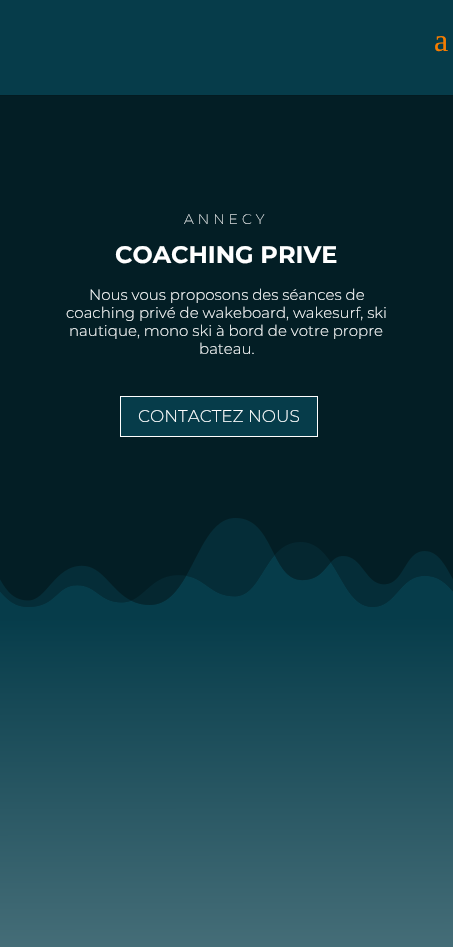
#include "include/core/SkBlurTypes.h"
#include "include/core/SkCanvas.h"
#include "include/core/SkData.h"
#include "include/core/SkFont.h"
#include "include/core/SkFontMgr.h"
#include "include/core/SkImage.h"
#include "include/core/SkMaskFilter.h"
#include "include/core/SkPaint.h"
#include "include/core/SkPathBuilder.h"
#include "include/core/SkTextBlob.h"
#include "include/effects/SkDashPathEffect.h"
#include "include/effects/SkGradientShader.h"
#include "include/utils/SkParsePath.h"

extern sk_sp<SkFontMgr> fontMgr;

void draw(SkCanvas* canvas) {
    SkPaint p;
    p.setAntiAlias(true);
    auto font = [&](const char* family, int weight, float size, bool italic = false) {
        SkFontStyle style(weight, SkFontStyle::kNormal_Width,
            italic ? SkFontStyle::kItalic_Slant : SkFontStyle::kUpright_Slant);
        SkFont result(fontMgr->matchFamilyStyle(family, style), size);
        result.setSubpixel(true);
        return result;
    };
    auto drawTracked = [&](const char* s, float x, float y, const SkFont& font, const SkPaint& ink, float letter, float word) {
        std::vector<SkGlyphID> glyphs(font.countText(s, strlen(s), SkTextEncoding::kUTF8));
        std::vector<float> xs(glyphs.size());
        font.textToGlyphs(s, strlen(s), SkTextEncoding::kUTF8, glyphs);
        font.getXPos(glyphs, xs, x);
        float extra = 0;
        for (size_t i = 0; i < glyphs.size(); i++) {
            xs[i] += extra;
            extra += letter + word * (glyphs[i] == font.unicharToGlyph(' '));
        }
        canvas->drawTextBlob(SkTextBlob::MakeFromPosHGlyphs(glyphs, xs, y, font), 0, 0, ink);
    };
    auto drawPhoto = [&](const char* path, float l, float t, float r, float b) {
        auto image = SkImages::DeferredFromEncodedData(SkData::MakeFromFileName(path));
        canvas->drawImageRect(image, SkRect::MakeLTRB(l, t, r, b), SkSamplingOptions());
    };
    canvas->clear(0xFFFFFFFF);
    p.setColor(0xFF031B21);
    canvas->drawRect(SkRect::MakeLTRB(0, 95, 453, 96), p);
    p.setColor(0xFF063C4A);
    canvas->drawRect(SkRect::MakeLTRB(0, 0, 453, 95), p);
    auto font1 = font("Liberation Serif", 400, 32);
    p.setColor(0xFFF57C00);
    canvas->drawString("a", 434, 51, font1, p);
    p.setColor(0xFF031E25);
    canvas->drawRect(SkRect::MakeLTRB(0, 96, 453, 607), p);
    auto font2 = font("Montserrat", 200, 14);
    p.setColor(0xFFFFFFFF);
    drawTracked("ANNECY", 184, 224, font2, p, 4, 0);
    auto font3 = font("Montserrat", 700, 24);
    canvas->drawString("COACHING PRIVE", 115, 263, font3, p);
    auto font4 = font("Montserrat", 300, 15);
    {
        const struct { const char* s; float x, y; } items[] = {
            {"Nous vous proposons des séances de", 89, 300},
            {"coaching privé de wakeboard, wakesurf, ski", 66, 318},
            {"nautique, mono ski à bord de votre propre", 69, 336},
            {"bateau.", 199, 354},
        };
        for (auto [s, x, y] : items) {
            canvas->drawString(s, x, y, font4, p);
        }
    }
    p.setColor(0xFF063C4A);
    canvas->drawRect(SkRect::MakeLTRB(120.5f, 396.5f, 317.5f, 436.5f), p);
    p.setStyle(SkPaint::kStroke_Style);
    p.setStrokeWidth(1);
    p.setColor(0xFFFFFFFF);
    canvas->drawRect(SkRect::MakeLTRB(120.5f, 396.5f, 317.5f, 436.5f), p);
    auto font5 = font("Montserrat", 300, 17);
    p.setStyle(SkPaint::kFill_Style);
    canvas->drawString("CONTACTEZ NOUS", 138, 422, font5, p);
    drawPhoto("media/1.png", 0, 518, 453, 617);
    {
        const SkColor colors[] = {0xFF063C4A, 0xFFFFFFFF};
        const float stops[] = {0, 1};
        const SkPoint ends[] = {{226, 617}, {227, 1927}};
        p.setShader(SkGradientShader::MakeLinear(ends, colors, stops, 2, SkTileMode::kClamp));
        p.setAlpha(255);
    }
    canvas->drawRect(SkRect::MakeLTRB(0, 617, 453, 947), p);
}
